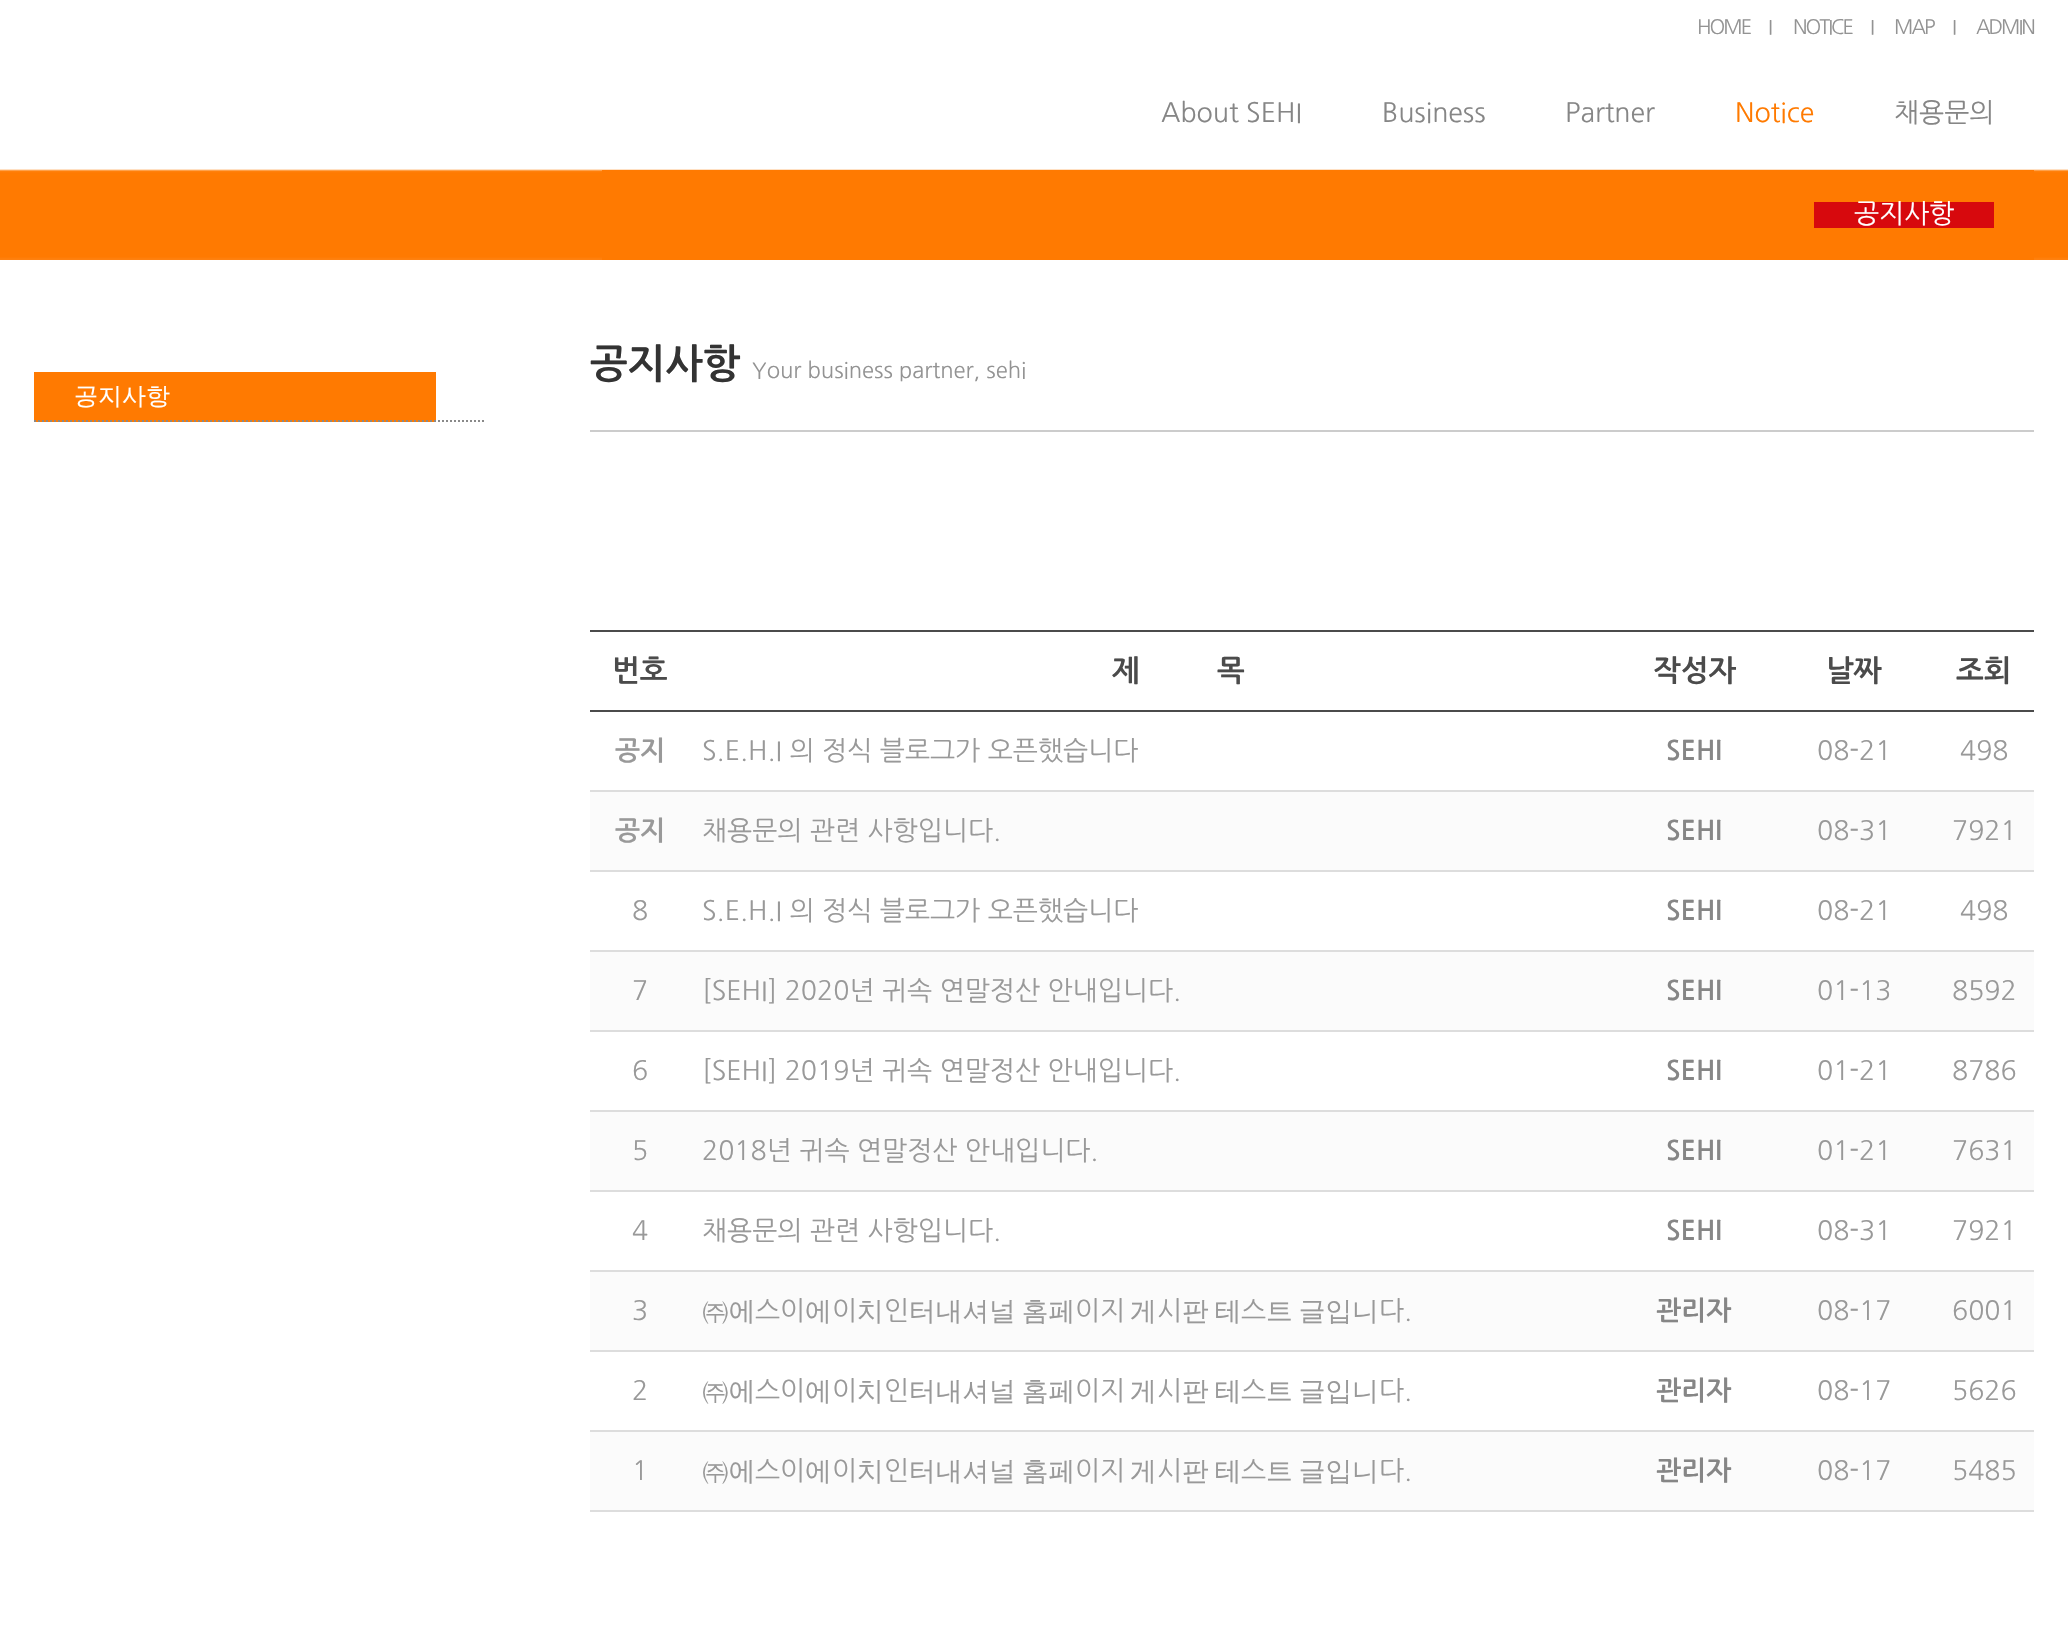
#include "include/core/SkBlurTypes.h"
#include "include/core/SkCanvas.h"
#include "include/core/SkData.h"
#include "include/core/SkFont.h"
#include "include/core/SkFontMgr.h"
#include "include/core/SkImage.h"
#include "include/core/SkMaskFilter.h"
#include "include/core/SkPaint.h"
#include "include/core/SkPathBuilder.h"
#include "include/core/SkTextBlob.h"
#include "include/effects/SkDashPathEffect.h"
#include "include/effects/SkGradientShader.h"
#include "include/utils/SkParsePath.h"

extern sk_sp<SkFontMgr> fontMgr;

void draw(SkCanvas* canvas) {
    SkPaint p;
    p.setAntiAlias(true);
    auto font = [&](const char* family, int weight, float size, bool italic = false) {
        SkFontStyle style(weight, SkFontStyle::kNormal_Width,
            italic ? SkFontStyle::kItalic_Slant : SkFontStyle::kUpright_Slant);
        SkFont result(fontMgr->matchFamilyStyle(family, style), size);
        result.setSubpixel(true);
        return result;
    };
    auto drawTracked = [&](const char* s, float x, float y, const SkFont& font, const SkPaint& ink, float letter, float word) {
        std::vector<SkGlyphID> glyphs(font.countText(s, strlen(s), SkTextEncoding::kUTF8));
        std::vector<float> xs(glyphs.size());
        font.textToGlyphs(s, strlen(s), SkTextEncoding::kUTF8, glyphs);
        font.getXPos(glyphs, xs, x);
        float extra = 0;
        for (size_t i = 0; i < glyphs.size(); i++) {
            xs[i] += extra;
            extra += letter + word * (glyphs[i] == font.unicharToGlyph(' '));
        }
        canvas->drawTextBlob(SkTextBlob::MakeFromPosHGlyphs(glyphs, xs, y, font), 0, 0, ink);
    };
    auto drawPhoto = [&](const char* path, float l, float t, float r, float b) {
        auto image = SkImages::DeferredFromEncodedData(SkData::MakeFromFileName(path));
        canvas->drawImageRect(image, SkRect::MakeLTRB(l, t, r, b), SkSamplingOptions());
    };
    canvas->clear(0xFFFFFFFF);
    drawPhoto("media/1.png", 0, 169, 2068, 260);
    auto font1 = font("NanumGothic", 400, 20);
    p.setColor(0xFF939393);
    {
        const struct { const char* s; float x, y; } items[] = {
            {"HOME", 1697, 34},
            {"I", 1768, 34},
            {"NOTICE", 1793, 34},
            {"I", 1870, 34},
            {"MAP", 1894, 34},
            {"I", 1952, 34},
            {"ADMIN", 1976, 34},
        };
        for (auto [s, x, y] : items) {
            drawTracked(s, x, y, font1, p, -2, 0);
        }
    }
    auto font2 = font("NanumGothic", 400, 26.7f);
    p.setColor(0xFF868686);
    {
        const struct { const char* s; float x, y; } items[] = {
            {"About SEHI", 1161, 122},
            {"Business", 1382, 122},
            {"Partner", 1565, 122},
        };
        for (auto [s, x, y] : items) {
            canvas->drawString(s, x, y, font2, p);
        }
    }
    p.setColor(0xFFFF7A00);
    canvas->drawString("Notice", 1735, 122, font2, p);
    p.setColor(0xFF868686);
    canvas->drawString("채용문의", 1894, 122, font2, p);
    p.setColor(0xFFFF7A01);
    canvas->drawRect(SkRect::MakeLTRB(602, 170, 2034, 260), p);
    p.setColor(0xFFD7090D);
    canvas->drawRect(SkRect::MakeLTRB(1814, 202, 1994, 228), p);
    p.setColor(0xFFFFFFFF);
    canvas->drawString("공지사항", 1854, 223, font2, p);
    p.setColor(0xFFFF7A01);
    canvas->drawRect(SkRect::MakeLTRB(34, 372, 436, 422), p);
    p.setStyle(SkPaint::kStroke_Style);
    p.setStrokeWidth(2);
    p.setColor(0xFF898989);
    p.setPathEffect(SkDashPathEffect::Make({{2, 2}}, 0));
    canvas->drawPath(SkPathBuilder().moveTo(34, 421).lineTo(486, 421).detach(), p);
    p.setPathEffect(nullptr);
    auto font3 = font("WenQuanYi Zen Hei", 500, 24);
    p.setStyle(SkPaint::kFill_Style);
    p.setColor(0xFFFFFFFF);
    canvas->drawString("공지사항", 74, 404, font3, p);
    auto font4 = font("NanumGothic", 700, 40);
    p.setColor(0xFF333333);
    canvas->drawString("공지사항", 590, 378, font4, p);
    auto font5 = font("NanumGothic", 400, 22);
    p.setColor(0xFF939393);
    canvas->drawString("Your business partner, sehi", 752, 378, font5, p);
    {
        const struct { float l, t, r, b; SkColor color; } items[] = {
            {590, 430, 2034, 432, 0xFFCCCCCC},
            {590, 630, 2034, 632, 0xFF4B4B4B},
            {590, 710, 2034, 712, 0xFF4B4B4B},
        };
        for (auto [l, t, r, b, color] : items) {
            p.setColor(color);
            canvas->drawRect(SkRect::MakeLTRB(l, t, r, b), p);
        }
    }
    auto font6 = font("NanumGothic", 700, 29.5f);
    {
        const struct { const char* s; float x, y; } items[] = {
            {"번호", 612, 681},
            {"제", 1112, 681},
            {"목", 1217, 681},
            {"작성자", 1653, 681},
            {"날짜", 1826, 681},
            {"조회", 1956, 681},
        };
        for (auto [s, x, y] : items) {
            canvas->drawString(s, x, y, font6, p);
        }
    }
    p.setColor(0xFFDDDDDD);
    canvas->drawRect(SkRect::MakeLTRB(590, 790, 690, 792), p);
    auto font7 = font("NanumGothic", 700, 26.7f);
    p.setColor(0xFF999999);
    canvas->drawString("공지", 615, 760, font7, p);
    canvas->drawString("S.E.H.I 의 정식 블로그가 오픈했습니다", 702, 760, font2, p);
    p.setColor(0xFFDDDDDD);
    canvas->drawRect(SkRect::MakeLTRB(690, 790, 2034, 792), p);
    p.setColor(0xFF868686);
    canvas->drawString("SEHI", 1666, 760, font7, p);
    p.setColor(0xFF999999);
    canvas->drawString("08-21", 1817, 760, font2, p);
    canvas->drawString("498", 1960, 760, font2, p);
    p.setColor(0xFFFBFBFB);
    canvas->drawRect(SkRect::MakeLTRB(590, 792, 2034, 870), p);
    p.setColor(0xFFDDDDDD);
    canvas->drawRect(SkRect::MakeLTRB(590, 870, 690, 872), p);
    p.setColor(0xFF999999);
    canvas->drawString("공지", 615, 840, font7, p);
    canvas->drawString("채용문의 관련 사항입니다.", 702, 840, font2, p);
    p.setColor(0xFFDDDDDD);
    canvas->drawRect(SkRect::MakeLTRB(690, 870, 2034, 872), p);
    p.setColor(0xFF868686);
    canvas->drawString("SEHI", 1666, 840, font7, p);
    p.setColor(0xFF999999);
    canvas->drawString("08-31", 1817, 840, font2, p);
    canvas->drawString("7921", 1952, 840, font2, p);
    p.setColor(0xFFDDDDDD);
    canvas->drawRect(SkRect::MakeLTRB(590, 950, 690, 952), p);
    p.setColor(0xFF999999);
    canvas->drawString("8", 632, 920, font2, p);
    canvas->drawString("S.E.H.I 의 정식 블로그가 오픈했습니다", 702, 920, font2, p);
    p.setColor(0xFFDDDDDD);
    canvas->drawRect(SkRect::MakeLTRB(690, 950, 2034, 952), p);
    p.setColor(0xFF868686);
    canvas->drawString("SEHI", 1666, 920, font7, p);
    p.setColor(0xFF999999);
    canvas->drawString("08-21", 1817, 920, font2, p);
    canvas->drawString("498", 1960, 920, font2, p);
    p.setColor(0xFFFBFBFB);
    canvas->drawRect(SkRect::MakeLTRB(590, 952, 2034, 1030), p);
    p.setColor(0xFFDDDDDD);
    canvas->drawRect(SkRect::MakeLTRB(590, 1030, 690, 1032), p);
    p.setColor(0xFF999999);
    canvas->drawString("7", 632, 1000, font2, p);
    canvas->drawString("[SEHI] 2020년 귀속 연말정산 안내입니다.", 702, 1000, font2, p);
    p.setColor(0xFFDDDDDD);
    canvas->drawRect(SkRect::MakeLTRB(690, 1030, 2034, 1032), p);
    p.setColor(0xFF868686);
    canvas->drawString("SEHI", 1666, 1000, font7, p);
    p.setColor(0xFF999999);
    canvas->drawString("01-13", 1817, 1000, font2, p);
    canvas->drawString("8592", 1952, 1000, font2, p);
    p.setColor(0xFFDDDDDD);
    canvas->drawRect(SkRect::MakeLTRB(590, 1110, 690, 1112), p);
    p.setColor(0xFF999999);
    canvas->drawString("6", 632, 1080, font2, p);
    canvas->drawString("[SEHI] 2019년 귀속 연말정산 안내입니다.", 702, 1080, font2, p);
    p.setColor(0xFFDDDDDD);
    canvas->drawRect(SkRect::MakeLTRB(690, 1110, 2034, 1112), p);
    p.setColor(0xFF868686);
    canvas->drawString("SEHI", 1666, 1080, font7, p);
    p.setColor(0xFF999999);
    canvas->drawString("01-21", 1817, 1080, font2, p);
    canvas->drawString("8786", 1952, 1080, font2, p);
    p.setColor(0xFFFBFBFB);
    canvas->drawRect(SkRect::MakeLTRB(590, 1112, 2034, 1190), p);
    p.setColor(0xFFDDDDDD);
    canvas->drawRect(SkRect::MakeLTRB(590, 1190, 690, 1192), p);
    p.setColor(0xFF999999);
    canvas->drawString("5", 632, 1160, font2, p);
    canvas->drawString("2018년 귀속 연말정산 안내입니다.", 702, 1160, font2, p);
    p.setColor(0xFFDDDDDD);
    canvas->drawRect(SkRect::MakeLTRB(690, 1190, 2034, 1192), p);
    p.setColor(0xFF868686);
    canvas->drawString("SEHI", 1666, 1160, font7, p);
    p.setColor(0xFF999999);
    canvas->drawString("01-21", 1817, 1160, font2, p);
    canvas->drawString("7631", 1952, 1160, font2, p);
    p.setColor(0xFFDDDDDD);
    canvas->drawRect(SkRect::MakeLTRB(590, 1270, 690, 1272), p);
    p.setColor(0xFF999999);
    canvas->drawString("4", 632, 1240, font2, p);
    canvas->drawString("채용문의 관련 사항입니다.", 702, 1240, font2, p);
    p.setColor(0xFFDDDDDD);
    canvas->drawRect(SkRect::MakeLTRB(690, 1270, 2034, 1272), p);
    p.setColor(0xFF868686);
    canvas->drawString("SEHI", 1666, 1240, font7, p);
    p.setColor(0xFF999999);
    canvas->drawString("08-31", 1817, 1240, font2, p);
    canvas->drawString("7921", 1952, 1240, font2, p);
    p.setColor(0xFFFBFBFB);
    canvas->drawRect(SkRect::MakeLTRB(590, 1272, 2034, 1350), p);
    p.setColor(0xFFDDDDDD);
    canvas->drawRect(SkRect::MakeLTRB(590, 1350, 690, 1352), p);
    p.setColor(0xFF999999);
    canvas->drawString("3", 632, 1320, font2, p);
    auto font8 = font("WenQuanYi Zen Hei", 500, 26.7f);
    canvas->drawString("㈜에", 702, 1320, font8, p);
    canvas->drawString("스이", 755, 1320, font2, p);
    canvas->drawString("에", 805, 1320, font8, p);
    canvas->drawString("이", 832, 1320, font2, p);
    canvas->drawString("치", 857, 1320, font8, p);
    canvas->drawString("인", 884, 1320, font2, p);
    drawTracked("터내셔널 홈페", 909, 1320, font8, p, 0, -2);
    canvas->drawString("이지", 1075, 1320, font2, p);
    canvas->drawString("게", 1130, 1320, font8, p);
    canvas->drawString("시", 1157, 1320, font2, p);
    drawTracked("판 테", 1182, 1320, font8, p, 0, -2);
    canvas->drawString("스", 1241, 1320, font2, p);
    drawTracked("트 글입니", 1266, 1320, font8, p, 0, -2);
    canvas->drawString("다.", 1379, 1320, font2, p);
    p.setColor(0xFFDDDDDD);
    canvas->drawRect(SkRect::MakeLTRB(690, 1350, 2034, 1352), p);
    p.setColor(0xFF868686);
    canvas->drawString("관리자", 1656, 1320, font7, p);
    p.setColor(0xFF999999);
    canvas->drawString("08-17", 1817, 1320, font2, p);
    canvas->drawString("6001", 1952, 1320, font2, p);
    p.setColor(0xFFDDDDDD);
    canvas->drawRect(SkRect::MakeLTRB(590, 1430, 690, 1432), p);
    p.setColor(0xFF999999);
    canvas->drawString("2", 632, 1400, font2, p);
    canvas->drawString("㈜에", 702, 1400, font8, p);
    canvas->drawString("스이", 755, 1400, font2, p);
    canvas->drawString("에", 805, 1400, font8, p);
    canvas->drawString("이", 832, 1400, font2, p);
    canvas->drawString("치", 857, 1400, font8, p);
    canvas->drawString("인", 884, 1400, font2, p);
    drawTracked("터내셔널 홈페", 909, 1400, font8, p, 0, -2);
    canvas->drawString("이지", 1075, 1400, font2, p);
    canvas->drawString("게", 1130, 1400, font8, p);
    canvas->drawString("시", 1157, 1400, font2, p);
    drawTracked("판 테", 1182, 1400, font8, p, 0, -2);
    canvas->drawString("스", 1241, 1400, font2, p);
    drawTracked("트 글입니", 1266, 1400, font8, p, 0, -2);
    canvas->drawString("다.", 1379, 1400, font2, p);
    p.setColor(0xFFDDDDDD);
    canvas->drawRect(SkRect::MakeLTRB(690, 1430, 2034, 1432), p);
    p.setColor(0xFF868686);
    canvas->drawString("관리자", 1656, 1400, font7, p);
    p.setColor(0xFF999999);
    canvas->drawString("08-17", 1817, 1400, font2, p);
    canvas->drawString("5626", 1952, 1400, font2, p);
    p.setColor(0xFFFBFBFB);
    canvas->drawRect(SkRect::MakeLTRB(590, 1432, 2034, 1510), p);
    p.setColor(0xFFDDDDDD);
    canvas->drawRect(SkRect::MakeLTRB(590, 1510, 690, 1512), p);
    p.setColor(0xFF999999);
    canvas->drawString("1", 632, 1480, font2, p);
    canvas->drawString("㈜에", 702, 1480, font8, p);
    canvas->drawString("스이", 755, 1480, font2, p);
    canvas->drawString("에", 805, 1480, font8, p);
    canvas->drawString("이", 832, 1480, font2, p);
    canvas->drawString("치", 857, 1480, font8, p);
    canvas->drawString("인", 884, 1480, font2, p);
    drawTracked("터내셔널 홈페", 909, 1480, font8, p, 0, -2);
    canvas->drawString("이지", 1075, 1480, font2, p);
    canvas->drawString("게", 1130, 1480, font8, p);
    canvas->drawString("시", 1157, 1480, font2, p);
    drawTracked("판 테", 1182, 1480, font8, p, 0, -2);
    canvas->drawString("스", 1241, 1480, font2, p);
    drawTracked("트 글입니", 1266, 1480, font8, p, 0, -2);
    canvas->drawString("다.", 1379, 1480, font2, p);
    p.setColor(0xFFDDDDDD);
    canvas->drawRect(SkRect::MakeLTRB(690, 1510, 2034, 1512), p);
    p.setColor(0xFF868686);
    canvas->drawString("관리자", 1656, 1480, font7, p);
    p.setColor(0xFF999999);
    canvas->drawString("08-17", 1817, 1480, font2, p);
    canvas->drawString("5485", 1952, 1480, font2, p);
}
